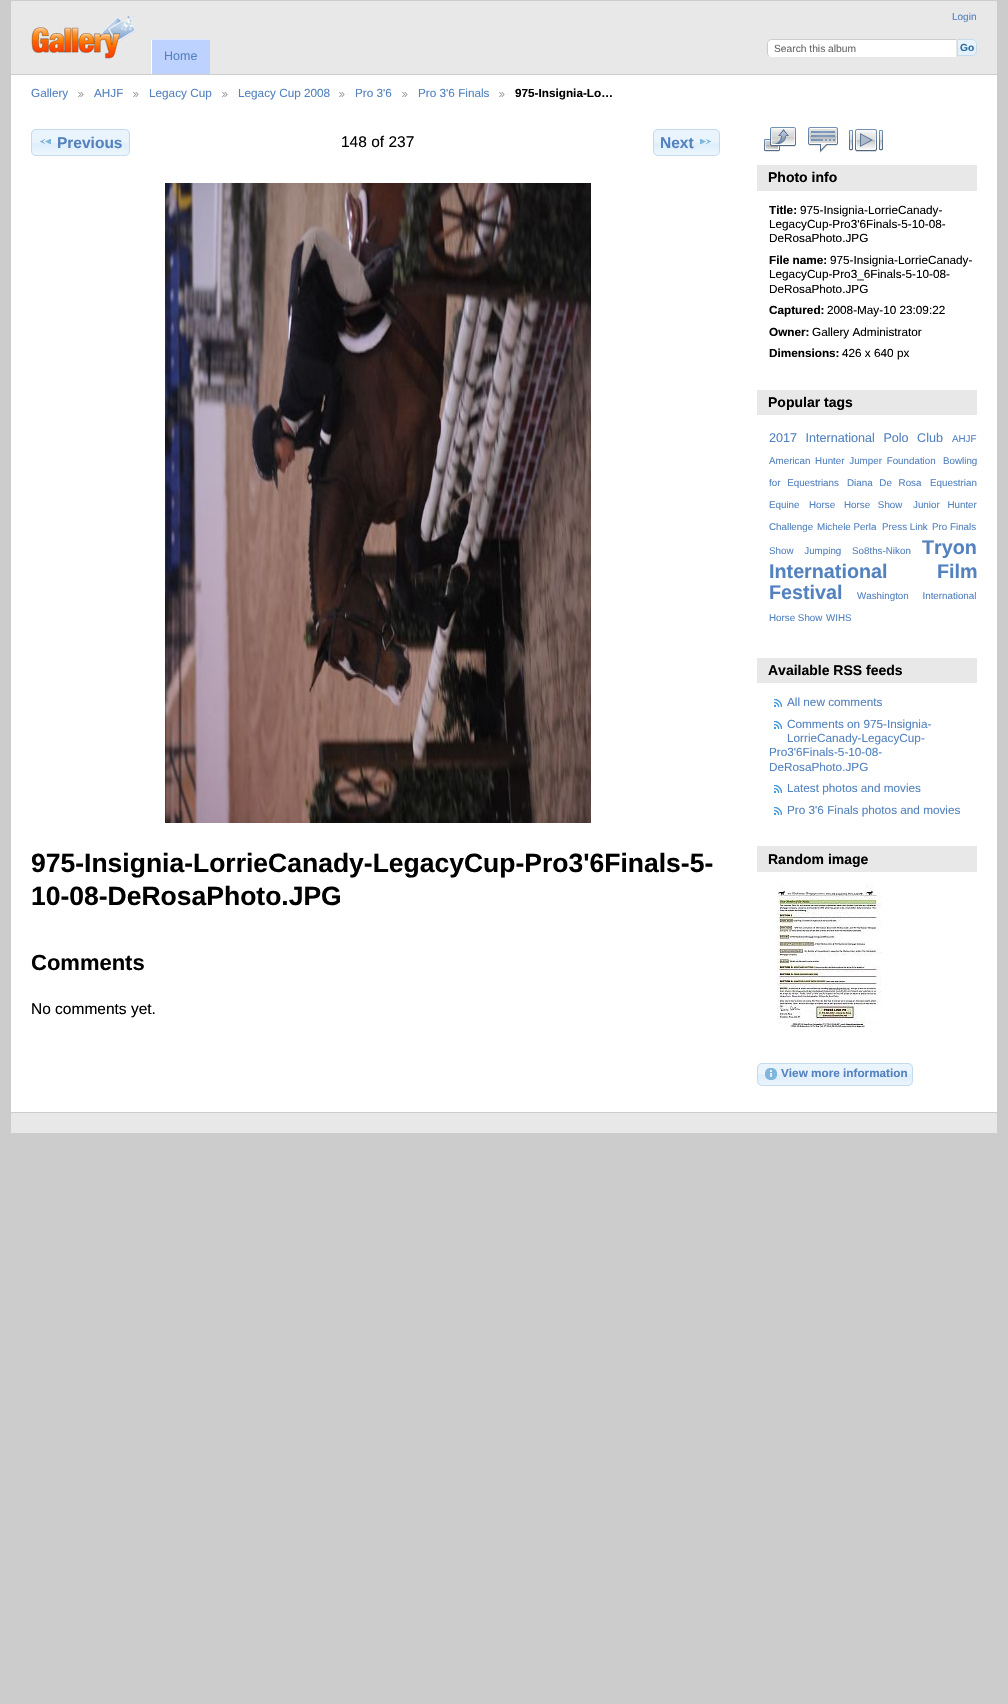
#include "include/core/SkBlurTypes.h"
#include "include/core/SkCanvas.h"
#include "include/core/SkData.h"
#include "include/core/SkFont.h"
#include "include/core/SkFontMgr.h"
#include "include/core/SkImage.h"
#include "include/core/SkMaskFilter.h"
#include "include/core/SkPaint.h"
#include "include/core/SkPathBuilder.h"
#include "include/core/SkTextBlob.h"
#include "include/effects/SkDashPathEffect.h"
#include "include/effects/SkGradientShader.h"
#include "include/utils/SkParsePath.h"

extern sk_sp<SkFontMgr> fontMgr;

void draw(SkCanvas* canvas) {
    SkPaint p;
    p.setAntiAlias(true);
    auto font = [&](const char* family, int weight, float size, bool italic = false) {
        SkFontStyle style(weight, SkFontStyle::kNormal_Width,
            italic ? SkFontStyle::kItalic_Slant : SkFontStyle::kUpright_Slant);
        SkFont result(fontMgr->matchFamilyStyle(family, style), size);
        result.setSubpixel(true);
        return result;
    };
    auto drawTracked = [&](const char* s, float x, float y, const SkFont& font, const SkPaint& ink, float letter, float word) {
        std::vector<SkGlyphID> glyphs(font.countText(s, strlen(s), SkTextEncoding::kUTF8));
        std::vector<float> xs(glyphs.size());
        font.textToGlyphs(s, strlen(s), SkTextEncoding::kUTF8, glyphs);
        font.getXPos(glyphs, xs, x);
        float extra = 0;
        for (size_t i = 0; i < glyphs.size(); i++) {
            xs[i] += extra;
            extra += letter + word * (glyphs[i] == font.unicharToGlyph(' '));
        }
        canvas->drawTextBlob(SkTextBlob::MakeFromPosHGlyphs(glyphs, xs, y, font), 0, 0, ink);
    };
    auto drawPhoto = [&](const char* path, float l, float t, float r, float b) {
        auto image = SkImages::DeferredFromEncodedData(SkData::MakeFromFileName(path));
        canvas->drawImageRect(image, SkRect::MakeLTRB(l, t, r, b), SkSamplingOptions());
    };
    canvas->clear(0xFFCCCCCC);
    p.setColor(0xFFFFFFFF);
    canvas->drawRect(SkRect::MakeLTRB(11, 75, 997, 1112), p);
    p.setColor(0xFFE8E8E8);
    canvas->drawRect(SkRect::MakeLTRB(11, 1, 997, 74), p);
    drawPhoto("media/1.png", 31, 15, 137, 59);
    auto font1 = font("Liberation Sans", 400, 10);
    p.setColor(0xFF5382BF);
    canvas->drawString("Login", 952, 20, font1, p);
    p.setColor(0xFFFFFFFF);
    canvas->drawPath(SkPathBuilder().moveTo(772, 39).lineTo(957, 39).lineTo(957, 58).lineTo(772, 58).cubicTo(769, 58, 767, 56, 767, 53).lineTo(767, 44).cubicTo(767, 41, 769, 39, 772, 39).close().detach(), p);
    p.setColor(0xFFCCCCCC);
    canvas->drawPath(SkPathBuilder().moveTo(772, 39).cubicTo(770, 39, 769, 40, 768, 40).lineTo(769, 41).cubicTo(770, 40, 771, 40, 772, 40).lineTo(956, 40).lineTo(957, 39).close().detach(), p);
    p.setColor(0xFFE8E8E8);
    canvas->drawPath(SkPathBuilder().moveTo(957, 39).lineTo(956, 40).lineTo(956, 57).lineTo(957, 58).close().detach(), p);
    canvas->drawPath(SkPathBuilder().moveTo(957, 58).lineTo(956, 57).lineTo(771, 57).lineTo(769, 56).lineTo(768, 57).cubicTo(769, 58, 770, 58, 772, 58).close().detach(), p);
    p.setColor(0xFFCCCCCC);
    canvas->drawPath(SkPathBuilder().moveTo(767, 44).cubicTo(767, 47, 766, 54.5f, 768.5f, 56.5f).lineTo(769, 56).lineTo(768, 54).lineTo(768, 43.5f).cubicTo(768, 42.5f, 768.5f, 41.5f, 769, 41).lineTo(768.5f, 40.5f).cubicTo(767.5f, 41, 767, 42.5f, 767, 44).close().detach(), p);
    auto font2 = font("Liberation Sans", 400, 10.25f);
    p.setColor(0xFF666666);
    canvas->drawString("Search this album", 774, 52, font2, p);
    drawPhoto("media/2.png", 958, 39, 977, 56);
    p.setStyle(SkPaint::kStroke_Style);
    p.setStrokeWidth(1);
    p.setColor(0xFFC5DBEC);
    canvas->drawPath(SkPathBuilder().moveTo(957.5f, 39.5f).lineTo(972, 39.5f).cubicTo(974.5f, 39.5f, 976.5f, 41.5f, 976.5f, 44).lineTo(976.5f, 51).cubicTo(976.5f, 53.5f, 974.5f, 55.5f, 972, 55.5f).lineTo(957.5f, 55.5f).close().detach(), p);
    auto font3 = font("Liberation Sans", 700, 10.25f);
    p.setStyle(SkPaint::kFill_Style);
    p.setColor(0xFF2E6E9E);
    canvas->drawString("Go", 960, 51, font3, p);
    p.setColor(0xFFBDD2FF);
    canvas->drawRect(SkRect::MakeLTRB(151, 39, 210, 74), p);
    p.setColor(0xFFDEE9FF);
    canvas->drawPath(SkPathBuilder().moveTo(151, 39).lineTo(210, 39).lineTo(210, 40).lineTo(152, 40).close().detach(), p);
    p.setColor(0xFFFFFFFF);
    canvas->drawPath(SkPathBuilder().moveTo(151, 74).lineTo(151, 39).lineTo(152, 40).lineTo(152, 74).close().detach(), p);
    auto font4 = font("Liberation Sans", 400, 12.5f);
    p.setColor(0xFF5382BF);
    canvas->drawString("Home", 164, 60, font4, p);
    auto font5 = font("Liberation Sans", 400, 11.75f);
    canvas->drawString("Gallery", 31, 97, font5, p);
    drawPhoto("media/3.png", 78, 92, 84, 97);
    canvas->drawString("AHJF", 94, 97, font5, p);
    drawPhoto("media/3.png", 133, 92, 139, 97);
    canvas->drawString("Legacy Cup", 149, 97, font5, p);
    drawPhoto("media/3.png", 222, 92, 228, 97);
    canvas->drawString("Legacy Cup 2008", 238, 97, font5, p);
    drawPhoto("media/3.png", 339, 92, 345, 97);
    canvas->drawString("Pro 3'6", 355, 97, font5, p);
    drawPhoto("media/3.png", 402, 92, 408, 97);
    canvas->drawString("Pro 3'6 Finals", 418, 97, font5, p);
    drawPhoto("media/3.png", 499, 92, 505, 97);
    auto font6 = font("Liberation Sans", 700, 11.75f);
    p.setColor(0xFF000000);
    canvas->drawString("975-Insignia-Lo…", 515, 97, font6, p);
    drawPhoto("media/4.png", 31, 129, 130, 156);
    p.setStyle(SkPaint::kStroke_Style);
    p.setColor(0xFFC5DBEC);
    canvas->drawRoundRect(SkRect::MakeLTRB(31.5f, 129.5f, 129.5f, 155.5f), 4.5f, 4.5f, p);
    drawPhoto("media/5.png", 40, 139, 51, 144);
    auto font7 = font("Liberation Sans", 700, 15.5f);
    p.setStyle(SkPaint::kFill_Style);
    p.setColor(0xFF5382BF);
    canvas->drawString("Previous", 57, 148, font7, p);
    auto font8 = font("Liberation Sans", 400, 15.5f);
    p.setColor(0xFF000000);
    canvas->drawString("148 of 237", 341, 147, font8, p);
    drawPhoto("media/6.png", 653, 129, 720, 156);
    p.setStyle(SkPaint::kStroke_Style);
    p.setColor(0xFFC5DBEC);
    canvas->drawRoundRect(SkRect::MakeLTRB(653.5f, 129.5f, 719.5f, 155.5f), 4.5f, 4.5f, p);
    p.setStyle(SkPaint::kFill_Style);
    p.setColor(0xFF5382BF);
    canvas->drawString("Next", 660, 148, font7, p);
    drawPhoto("media/7.png", 700, 139, 711, 144);
    drawPhoto("media/8.png", 165, 183, 591, 823);
    auto font9 = font("Liberation Sans", 700, 26.5f);
    p.setColor(0xFF000000);
    canvas->drawString("975-Insignia-LorrieCanady-LegacyCup-Pro3'6Finals-5-", 31, 872, font9, p);
    canvas->drawString("10-08-DeRosaPhoto.JPG", 31, 905, font9, p);
    auto font10 = font("Liberation Sans", 700, 22);
    canvas->drawString("Comments", 31, 970, font10, p);
    canvas->drawString("No comments yet.", 31, 1014, font8, p);
    drawPhoto("media/9.png", 764, 127, 796, 152);
    drawPhoto("media/10.png", 808, 127, 838, 153);
    drawPhoto("media/11.png", 849, 129, 883, 152);
    p.setColor(0xFFE8E8E8);
    canvas->drawRect(SkRect::MakeLTRB(757, 165, 977, 191), p);
    auto font11 = font("Liberation Sans", 700, 14);
    p.setColor(0xFF000000);
    canvas->drawString("Photo info", 768, 182, font11, p);
    canvas->drawString("Title:", 769, 214, font6, p);
    {
        const struct { const char* s; float x, y; } items[] = {
            {"975-Insignia-LorrieCanady-", 800, 214},
            {"LegacyCup-Pro3'6Finals-5-10-08-", 769, 228},
            {"DeRosaPhoto.JPG", 769, 242},
        };
        for (auto [s, x, y] : items) {
            canvas->drawString(s, x, y, font5, p);
        }
    }
    canvas->drawString("File name:", 769, 264, font6, p);
    {
        const struct { const char* s; float x, y; } items[] = {
            {"975-Insignia-LorrieCanady-", 830, 264},
            {"LegacyCup-Pro3_6Finals-5-10-08-", 769, 278},
            {"DeRosaPhoto.JPG", 769, 293},
        };
        for (auto [s, x, y] : items) {
            canvas->drawString(s, x, y, font5, p);
        }
    }
    canvas->drawString("Captured:", 769, 314, font6, p);
    canvas->drawString("2008-May-10 23:09:22", 827, 314, font5, p);
    canvas->drawString("Owner:", 769, 336, font6, p);
    canvas->drawString("Gallery Administrator", 812, 336, font5, p);
    canvas->drawString("Dimensions:", 769, 357, font6, p);
    canvas->drawString("426 x 640 px", 842, 357, font5, p);
    p.setColor(0xFFE8E8E8);
    canvas->drawRect(SkRect::MakeLTRB(757, 390, 977, 415), p);
    p.setColor(0xFF000000);
    canvas->drawString("Popular tags", 768, 407, font11, p);
    auto font12 = font("Liberation Sans", 400, 12.6f);
    p.setColor(0xFF5382BF);
    drawTracked("2017 International Polo Club", 769, 442, font12, p, 0, 5);
    auto font13 = font("Liberation Sans", 400, 9.8f);
    canvas->drawString("AHJF", 952, 442, font13, p);
    drawTracked("American Hunter Jumper Foundation", 769, 464, font13, p, 0, 2);
    canvas->drawString("Bowling", 943, 464, font13, p);
    drawTracked("for Equestrians", 769, 486, font13, p, 0, 4);
    drawTracked("Diana De Rosa", 847, 486, font13, p, 0, 4);
    {
        const struct { const char* s; float x, y; } items[] = {
            {"Equestrian", 930, 486},
            {"Equine", 769, 508},
            {"Horse", 809, 508},
        };
        for (auto [s, x, y] : items) {
            canvas->drawString(s, x, y, font13, p);
        }
    }
    drawTracked("Horse Show", 844, 508, font13, p, 0, 5);
    drawTracked("Junior Hunter", 913, 508, font13, p, 0, 5);
    {
        const struct { const char* s; float x, y; } items[] = {
            {"Challenge", 769, 530},
            {"Michele Perla", 817, 530},
            {"Press Link", 882, 530},
            {"Pro Finals", 932, 530},
        };
        for (auto [s, x, y] : items) {
            canvas->drawString(s, x, y, font13, p);
        }
    }
    drawTracked("Show Jumping", 769, 554, font13, p, 0, 8);
    canvas->drawString("So8ths-Nikon", 852, 554, font13, p);
    auto font14 = font("Liberation Sans", 700, 19.75f);
    canvas->drawString("Tryon", 922, 554, font14, p);
    drawTracked("International Film", 769, 578, font14, p, 0, 44);
    canvas->drawString("Festival", 769, 599, font14, p);
    drawTracked("Washington International", 857, 599, font13, p, 0, 11);
    canvas->drawString("Horse Show", 769, 621, font13, p);
    canvas->drawString("WIHS", 826, 621, font13, p);
    p.setColor(0xFFE8E8E8);
    canvas->drawRect(SkRect::MakeLTRB(757, 658, 977, 683), p);
    p.setColor(0xFF000000);
    canvas->drawString("Available RSS feeds", 768, 675, font11, p);
    drawPhoto("media/12.png", 774, 699, 782, 707);
    p.setColor(0xFF5382BF);
    canvas->drawString("All new comments", 787, 706, font5, p);
    drawPhoto("media/12.png", 774, 721, 782, 729);
    {
        const struct { const char* s; float x, y; } items[] = {
            {"Comments on 975-Insignia-", 787, 728},
            {"LorrieCanady-LegacyCup-", 787, 742},
            {"Pro3'6Finals-5-10-08-", 769, 756},
            {"DeRosaPhoto.JPG", 769, 771},
        };
        for (auto [s, x, y] : items) {
            canvas->drawString(s, x, y, font5, p);
        }
    }
    drawPhoto("media/12.png", 774, 785, 782, 793);
    canvas->drawString("Latest photos and movies", 787, 792, font5, p);
    drawPhoto("media/12.png", 774, 807, 782, 815);
    canvas->drawString("Pro 3'6 Finals photos and movies", 787, 814, font5, p);
    p.setColor(0xFFE8E8E8);
    canvas->drawRect(SkRect::MakeLTRB(757, 846, 977, 872), p);
    p.setColor(0xFF000000);
    canvas->drawString("Random image", 768, 864, font11, p);
    drawPhoto("media/13.png", 776, 884, 881, 1028);
    drawPhoto("media/14.png", 757, 1063, 913, 1086);
    p.setStyle(SkPaint::kStroke_Style);
    p.setColor(0xFFC5DBEC);
    canvas->drawRoundRect(SkRect::MakeLTRB(757.5f, 1063.5f, 912.5f, 1085.5f), 4.5f, 4.5f, p);
    drawPhoto("media/15.png", 765, 1068, 777, 1080);
    p.setStyle(SkPaint::kFill_Style);
    p.setColor(0xFF5382BF);
    canvas->drawString("View more information", 781, 1077, font6, p);
    p.setColor(0xFFE8E8E8);
    canvas->drawRect(SkRect::MakeLTRB(11, 1113, 997, 1133), p);
}
